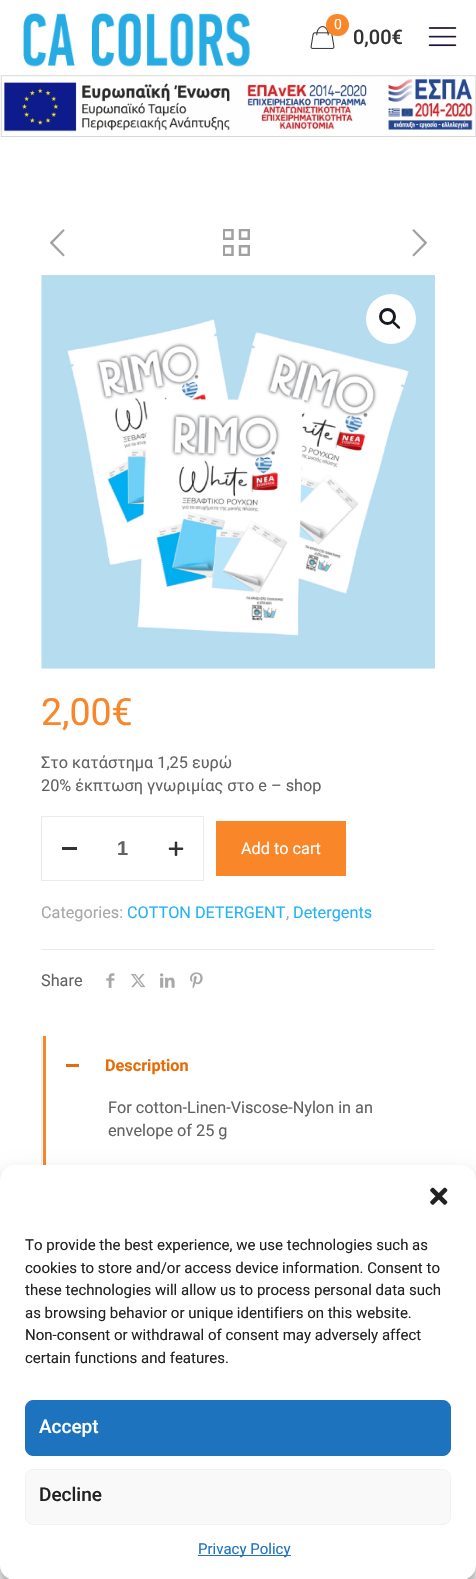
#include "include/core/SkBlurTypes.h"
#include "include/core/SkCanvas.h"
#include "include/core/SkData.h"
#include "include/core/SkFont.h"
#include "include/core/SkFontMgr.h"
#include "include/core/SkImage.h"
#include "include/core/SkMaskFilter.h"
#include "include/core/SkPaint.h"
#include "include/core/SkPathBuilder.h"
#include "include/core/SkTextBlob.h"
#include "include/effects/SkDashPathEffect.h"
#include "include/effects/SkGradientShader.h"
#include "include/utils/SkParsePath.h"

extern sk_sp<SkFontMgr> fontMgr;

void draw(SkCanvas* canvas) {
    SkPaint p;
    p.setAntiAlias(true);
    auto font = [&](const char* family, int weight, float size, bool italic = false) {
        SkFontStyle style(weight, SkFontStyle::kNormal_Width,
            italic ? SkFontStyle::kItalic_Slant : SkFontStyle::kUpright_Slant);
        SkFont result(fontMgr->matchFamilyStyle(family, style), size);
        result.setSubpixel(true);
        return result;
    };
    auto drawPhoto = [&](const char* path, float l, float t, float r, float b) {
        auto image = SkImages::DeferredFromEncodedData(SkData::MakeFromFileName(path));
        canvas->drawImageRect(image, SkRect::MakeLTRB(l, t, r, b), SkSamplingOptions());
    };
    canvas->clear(0xFFFFFFFF);
    drawPhoto("media/1.png", 23, 13, 250, 67);
    drawPhoto("media/2.png", 428, 27, 457, 47);
    drawPhoto("media/3.png", 0, 75, 476, 137);
    drawPhoto("media/4.png", 310, 26, 335, 49);
    p.setColor(0xFFF98629);
    canvas->drawRoundRect(SkRect::MakeLTRB(326, 14, 349, 36), 11, 11, p);
    auto font1 = font("Roboto", 400, 14);
    p.setColor(0xFFFFFFFF);
    canvas->drawString("0", 334, 29, font1, p);
    auto font2 = font("Roboto", 500, 20);
    p.setColor(0xFF333333);
    canvas->drawString("0,00€", 353, 44, font2, p);
    drawPhoto("media/5.png", 50, 229, 65, 257);
    drawPhoto("media/6.png", 223, 229, 250, 256);
    drawPhoto("media/7.png", 412, 229, 427, 257);
    drawPhoto("media/8.png", 41, 275, 435, 669);
    p.setColor(0xFFFFFFFF);
    canvas->drawCircle(391, 319, 25, p);
    p.setStyle(SkPaint::kStroke_Style);
    p.setStrokeWidth(3);
    p.setColor(0xFF161922);
    canvas->drawCircle(387.5f, 316.5f, 7, p);
    p.setStyle(SkPaint::kFill_Style);
    canvas->drawPath(SkPathBuilder().moveTo(392.5f, 321.5f).cubicTo(394, 320, 396.5f, 323.5f, 397, 324).cubicTo(398, 325, 401, 327, 400, 328.5f).cubicTo(398.5f, 330, 396, 326.5f, 395.5f, 326).cubicTo(394.5f, 325, 391.5f, 323, 392.5f, 321.5f).close().detach(), p);
    auto font3 = font("Roboto", 400, 37.5f);
    p.setColor(0xFFF98629);
    canvas->drawString("2,00€", 41, 725, font3, p);
    auto font4 = font("Roboto", 400, 16.25f);
    p.setColor(0xFF626262);
    canvas->drawString("Στο κατάστημα 1,25 ευρώ", 41, 768, font4, p);
    canvas->drawString("20% έκπτωση γνωριμίας στο e – shop", 41, 791, font4, p);
    p.setStyle(SkPaint::kStroke_Style);
    p.setStrokeWidth(1);
    p.setColor(0xFFEBEBEB);
    canvas->drawRect(SkRect::MakeLTRB(41.5f, 816.5f, 203.5f, 880.5f), p);
    p.setStyle(SkPaint::kFill_Style);
    p.setColor(0xFF333333);
    canvas->drawRect(SkRect::MakeLTRB(62, 847, 77, 850), p);
    auto font5 = font("Liberation Sans", 700, 20);
    p.setColor(0xFF626262);
    canvas->drawString("1", 117, 855, font5, p);
    drawPhoto("media/9.png", 168, 841, 184, 856);
    p.setColor(0xFFF98629);
    canvas->drawRect(SkRect::MakeLTRB(216, 821, 346, 876), p);
    p.setColor(0xFFFFFFFF);
    canvas->drawString("Add to cart", 241, 854, font4, p);
    p.setColor(0xFFA8A8A8);
    canvas->drawString("Categories:", 41, 918, font4, p);
    p.setColor(0xFF24B2F9);
    canvas->drawString("COTTON DETERGENT", 127, 918, font4, p);
    p.setColor(0xFFA8A8A8);
    canvas->drawString(",", 286, 918, font4, p);
    p.setColor(0xFF24B2F9);
    canvas->drawString("Detergents", 293, 918, font4, p);
    p.setColor(0xFFEBEBEB);
    canvas->drawRect(SkRect::MakeLTRB(41, 949, 435, 950), p);
    p.setColor(0xFF626262);
    canvas->drawString("Share", 41, 986, font4, p);
    drawPhoto("media/10.png", 106, 973, 115, 988);
    drawPhoto("media/11.png", 131, 973, 146, 988);
    drawPhoto("media/12.png", 160, 973, 175, 988);
    drawPhoto("media/13.png", 190, 972, 203, 989);
    {
        const struct { float l, t, r, b; SkColor color; } items[] = {
            {41, 1036, 42, 1165, 0xFFEBEBEB},
            {43, 1036, 46, 1165, 0xFFF98629},
            {66, 1064, 79, 1067, 0xFFE76C08},
        };
        for (auto [l, t, r, b, color] : items) {
            p.setColor(color);
            canvas->drawRect(SkRect::MakeLTRB(l, t, r, b), p);
        }
    }
    auto font6 = font("Roboto", 700, 16.25f);
    canvas->drawString("Description", 105, 1071, font6, p);
    p.setColor(0xFF626262);
    canvas->drawString("For cotton-Linen-Viscose-Nylon in an", 108, 1113, font4, p);
    canvas->drawString("envelope of 25 g", 108, 1136, font4, p);
    p.setColor(0x3B000000);
    p.setMaskFilter(SkMaskFilter::MakeBlur(kNormal_SkBlurStyle, 4));
    canvas->drawRoundRect(SkRect::MakeLTRB(0, 1173, 476, 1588), 15, 15, p);
    p.setMaskFilter(nullptr);
    p.setColor(0x30000000);
    p.setMaskFilter(SkMaskFilter::MakeBlur(kNormal_SkBlurStyle, 12.5f));
    canvas->drawRoundRect(SkRect::MakeLTRB(0, 1178, 476, 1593), 15, 15, p);
    p.setMaskFilter(nullptr);
    p.setColor(0xFF808080);
    p.setMaskFilter(SkMaskFilter::MakeBlur(kNormal_SkBlurStyle, 3));
    canvas->drawRoundRect(SkRect::MakeLTRB(389, 1488, 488, 1563), 2.5f, 2.5f, p);
    p.setMaskFilter(nullptr);
    p.setColor(0xFFFFFFFF);
    canvas->drawRoundRect(SkRect::MakeLTRB(0, 1165, 476, 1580), 15, 15, p);
    drawPhoto("media/14.png", 430, 1187, 448, 1205);
    auto font7 = font("Roboto", 400, 15);
    p.setColor(0xFF222222);
    {
        const struct { const char* s; float x, y; } items[] = {
            {"To provide the best experience, we use technologies such as", 25, 1250},
            {"cookies to store and/or access device information. Consent to", 25, 1273},
            {"these technologies will allow us to process personal data such", 25, 1295},
            {"as browsing behavior or unique identifiers on this website.", 25, 1318},
            {"Non-consent or withdrawal of consent may adversely affect", 25, 1340},
            {"certain functions and features.", 25, 1363},
        };
        for (auto [s, x, y] : items) {
            canvas->drawString(s, x, y, font7, p);
        }
    }
    p.setColor(0xFF1E73BE);
    canvas->drawRoundRect(SkRect::MakeLTRB(25.5f, 1400.5f, 450.5f, 1455.5f), 7.5f, 7.5f, p);
    p.setStyle(SkPaint::kStroke_Style);
    canvas->drawRoundRect(SkRect::MakeLTRB(25.5f, 1400.5f, 450.5f, 1455.5f), 7.5f, 7.5f, p);
    auto font8 = font("Roboto", 500, 19);
    p.setStyle(SkPaint::kFill_Style);
    p.setColor(0xFFFFFFFF);
    canvas->drawString("Accept", 39, 1433, font8, p);
    p.setColor(0xFFF9F9F9);
    canvas->drawRoundRect(SkRect::MakeLTRB(25.5f, 1469.5f, 450.5f, 1524.5f), 7.5f, 7.5f, p);
    p.setStyle(SkPaint::kStroke_Style);
    p.setColor(0xFFF2F2F2);
    canvas->drawRoundRect(SkRect::MakeLTRB(25.5f, 1469.5f, 450.5f, 1524.5f), 7.5f, 7.5f, p);
    p.setStyle(SkPaint::kFill_Style);
    p.setColor(0xFF222222);
    canvas->drawString("Decline", 39, 1501, font8, p);
    p.setColor(0xFF1E73BE);
    canvas->drawRect(SkRect::MakeLTRB(198, 1555, 291, 1556), p);
    canvas->drawString("Privacy Policy", 198, 1554, font7, p);
}
